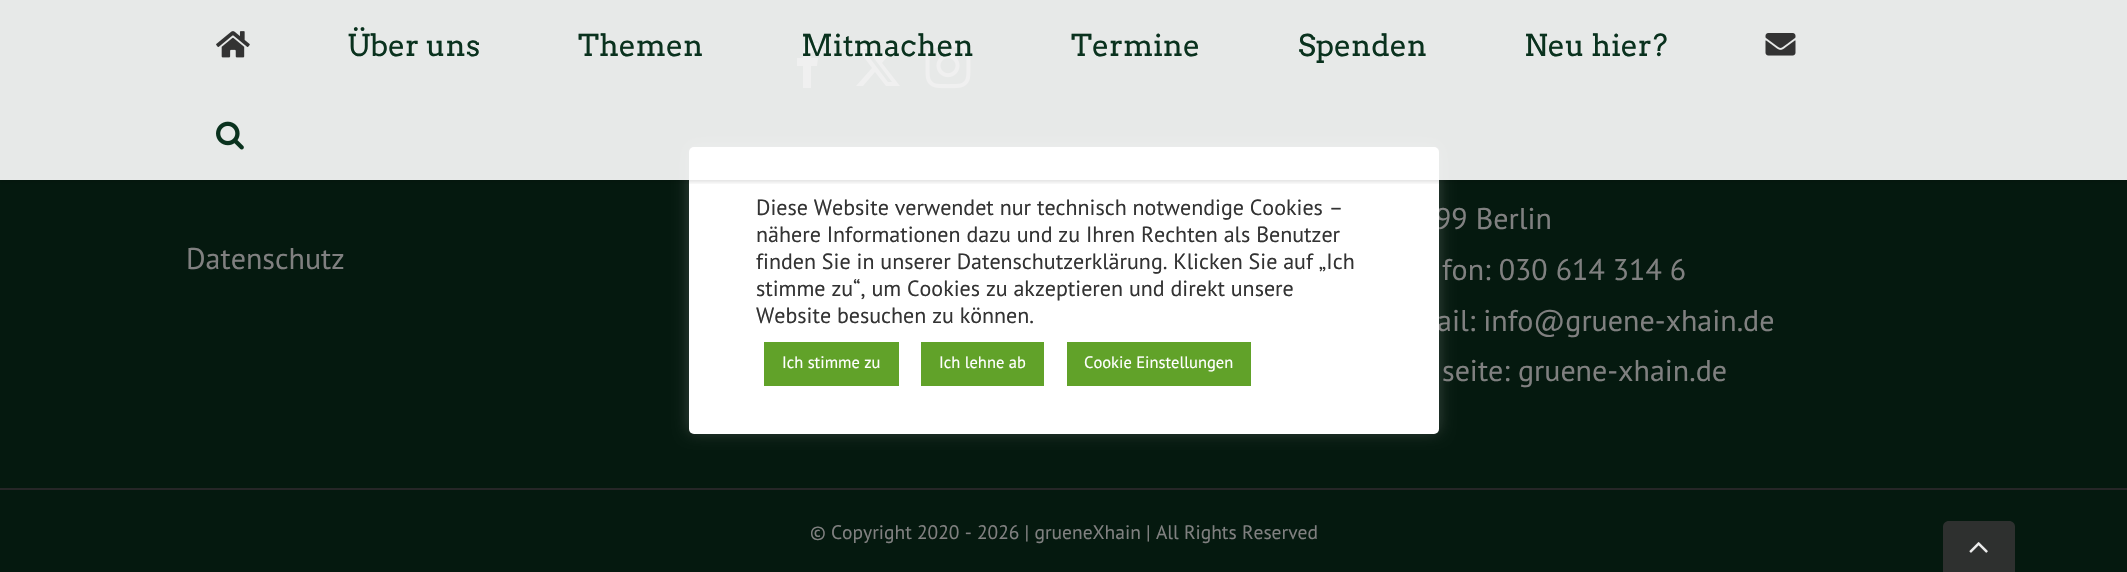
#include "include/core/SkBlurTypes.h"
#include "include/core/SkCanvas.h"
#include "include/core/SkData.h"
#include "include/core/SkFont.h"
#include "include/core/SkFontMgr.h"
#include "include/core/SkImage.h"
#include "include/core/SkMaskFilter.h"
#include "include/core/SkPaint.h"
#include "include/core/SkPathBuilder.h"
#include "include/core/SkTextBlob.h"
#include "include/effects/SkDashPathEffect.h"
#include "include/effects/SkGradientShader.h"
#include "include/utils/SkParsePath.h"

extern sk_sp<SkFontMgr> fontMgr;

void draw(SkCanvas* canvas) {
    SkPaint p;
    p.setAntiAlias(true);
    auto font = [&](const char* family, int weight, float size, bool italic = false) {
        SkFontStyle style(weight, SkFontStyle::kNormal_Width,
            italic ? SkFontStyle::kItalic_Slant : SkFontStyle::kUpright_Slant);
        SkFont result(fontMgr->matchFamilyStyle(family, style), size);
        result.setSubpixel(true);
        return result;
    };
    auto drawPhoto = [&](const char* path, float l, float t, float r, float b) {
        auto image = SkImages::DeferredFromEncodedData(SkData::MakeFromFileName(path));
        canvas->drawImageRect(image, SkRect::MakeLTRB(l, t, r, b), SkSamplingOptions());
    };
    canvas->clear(0xFF05190F);
    p.setColor(0xFF5F5F5F);
    canvas->drawPath(SkPathBuilder().moveTo(811, 88).lineTo(803, 88).lineTo(803, 66).lineTo(797, 66).lineTo(797, 58).lineTo(803, 58).cubicTo(803, 44, 804, 43, 818, 43).lineTo(818, 51).cubicTo(811, 51, 811, 51, 811, 58).lineTo(818, 58).lineTo(817, 66).lineTo(811, 66).close().detach(), p);
    canvas->drawPath(SkPathBuilder().moveTo(890, 45).lineTo(897, 45).lineTo(882, 63).lineTo(900, 86).lineTo(886, 86).lineTo(875, 72).lineTo(863, 86).lineTo(856, 86).lineTo(872, 68).lineTo(855, 45).lineTo(869, 45).lineTo(879, 58).close().moveTo(888, 82).lineTo(892, 82).lineTo(867, 49).lineTo(863, 49).close().detach(), p);
    drawPhoto("media/4.png", 925, 43, 971, 89);
    auto font1 = font("PT Sans", 400, 30);
    p.setColor(0xFF808080);
    canvas->drawString("99 Berlin", 1435, 229, font1, p);
    canvas->drawString("ail: info@gruene-xhain.de", 1437, 331, font1, p);
    p.setColor(0x4DACABAB);
    p.setMaskFilter(SkMaskFilter::MakeBlur(kNormal_SkBlurStyle, 7.5f));
    canvas->drawRoundRect(SkRect::MakeLTRB(689, 146, 1439, 432), 5, 5, p);
    p.setMaskFilter(nullptr);
    p.setColor(0xFFFFFFFF);
    canvas->drawRoundRect(SkRect::MakeLTRB(689, 147, 1439, 434), 5, 5, p);
    canvas->save();
    canvas->clipRect(SkRect::MakeLTRB(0, 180, 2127, 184));
    p.setColor(0x1F000000);
    p.setMaskFilter(SkMaskFilter::MakeBlur(kNormal_SkBlurStyle, 2));
    canvas->drawRect(SkRect::MakeLTRB(0, 2, 2127, 182), p);
    p.setMaskFilter(nullptr);
    canvas->restore();
    p.setColor(0xE6FFFFFF);
    canvas->drawRect(SkRect::MakeLTRB(0, 0, 2127, 180), p);
    drawPhoto("media/1.png", 216, 31, 250, 58);
    auto font2 = font("Arvo", 400, 30);
    p.setColor(0xFF0A321E);
    {
        const struct { const char* s; float x, y; } items[] = {
            {"Über uns", 347, 56},
            {"Themen", 578, 56},
            {"Mitmachen", 801, 56},
            {"Termine", 1071, 56},
            {"Spenden", 1298, 56},
            {"Neu hier?", 1524, 56},
        };
        for (auto [s, x, y] : items) {
            canvas->drawString(s, x, y, font2, p);
        }
    }
    drawPhoto("media/2.png", 1765, 33, 1796, 56);
    drawPhoto("media/3.png", 216, 121, 244, 150);
    p.setColor(0xFF808080);
    {
        const struct { const char* s; float x, y; } items[] = {
            {"Datenschutz", 186, 269},
            {"fon: 030 614 314 6", 1442, 280},
            {"seite: gruene-xhain.de", 1442, 381},
        };
        for (auto [s, x, y] : items) {
            canvas->drawString(s, x, y, font1, p);
        }
    }
    p.setColor(0xFF262627);
    canvas->drawRect(SkRect::MakeLTRB(0, 488, 2127, 490), p);
    auto font3 = font("PT Sans", 400, 19.5f);
    p.setColor(0xFF808080);
    canvas->drawString("© Copyright 2020 - 2026 | grueneXhain | All Rights Reserved", 810, 539, font3, p);
    auto font4 = font("PT Sans", 400, 22);
    p.setColor(0xFF333333);
    {
        const struct { const char* s; float x, y; } items[] = {
            {"Diese Website verwendet nur technisch notwendige Cookies –", 756, 215},
            {"nähere Informationen dazu und zu Ihren Rechten als Benutzer", 756, 242},
            {"finden Sie in unserer Datenschutzerklärung. Klicken Sie auf „Ich", 756, 269},
            {"stimme zu“, um Cookies zu akzeptieren und direkt unsere", 756, 296},
            {"Website besuchen zu können.", 756, 323},
        };
        for (auto [s, x, y] : items) {
            canvas->drawString(s, x, y, font4, p);
        }
    }
    p.setColor(0xFF61A229);
    canvas->drawRect(SkRect::MakeLTRB(764, 342, 899, 386), p);
    auto font5 = font("PT Sans", 400, 16.5f);
    p.setColor(0xFFFFFFFF);
    canvas->drawString("Ich stimme zu", 782, 368, font5, p);
    p.setColor(0xFF61A229);
    canvas->drawRect(SkRect::MakeLTRB(921, 342, 1044, 386), p);
    p.setColor(0xFFFFFFFF);
    canvas->drawString("Ich lehne ab", 939, 368, font5, p);
    p.setColor(0xFF61A229);
    canvas->drawRect(SkRect::MakeLTRB(1067, 342, 1251, 386), p);
    p.setColor(0xFFFFFFFF);
    canvas->drawString("Cookie Einstellungen", 1084, 368, font5, p);
    p.setColor(0xFF2E302F);
    canvas->drawPath(SkPathBuilder().moveTo(1949, 521).lineTo(2009, 521).cubicTo(2012.5f, 521, 2015, 523.5f, 2015, 527).lineTo(2015, 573).lineTo(1943, 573).lineTo(1943, 527).cubicTo(1943, 523.5f, 1945.5f, 521, 1949, 521).close().detach(), p);
    drawPhoto("media/5.png", 1969, 542, 1988, 553);
}
